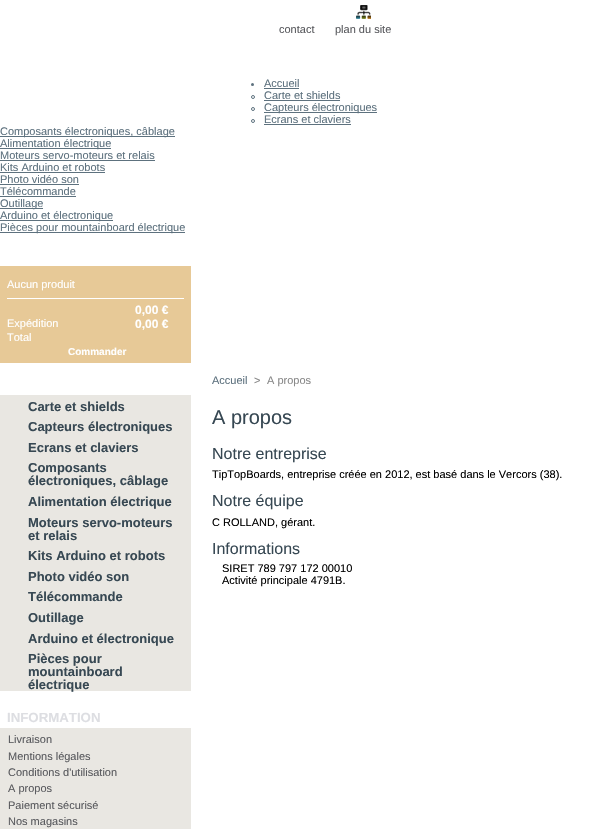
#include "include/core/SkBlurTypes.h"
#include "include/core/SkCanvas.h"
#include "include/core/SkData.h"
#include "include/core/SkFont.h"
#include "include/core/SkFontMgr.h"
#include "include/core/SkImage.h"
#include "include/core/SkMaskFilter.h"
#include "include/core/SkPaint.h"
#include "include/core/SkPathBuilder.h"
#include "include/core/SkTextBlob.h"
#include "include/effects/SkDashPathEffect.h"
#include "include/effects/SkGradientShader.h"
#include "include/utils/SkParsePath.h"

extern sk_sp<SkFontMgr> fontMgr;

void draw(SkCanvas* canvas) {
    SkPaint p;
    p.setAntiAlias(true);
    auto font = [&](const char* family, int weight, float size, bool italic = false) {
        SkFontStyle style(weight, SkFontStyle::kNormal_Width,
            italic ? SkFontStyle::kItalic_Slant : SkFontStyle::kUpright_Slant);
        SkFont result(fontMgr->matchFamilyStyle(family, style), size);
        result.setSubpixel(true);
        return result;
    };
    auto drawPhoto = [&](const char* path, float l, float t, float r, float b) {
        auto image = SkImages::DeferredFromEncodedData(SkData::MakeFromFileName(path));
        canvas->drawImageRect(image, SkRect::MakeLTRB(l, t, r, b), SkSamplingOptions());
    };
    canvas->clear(0xFFFFFFFF);
    auto font1 = font("Liberation Sans", 400, 11);
    p.setColor(0xFF595A5E);
    canvas->drawString("contact", 279, 33, font1, p);
    drawPhoto("media/1.png", 356, 5, 371, 19);
    canvas->drawString("plan du site", 335, 33, font1, p);
    p.setColor(0xFF5D717E);
    canvas->drawCircle(252.5f, 84.5f, 1.5f, p);
    canvas->drawString("Accueil", 264, 87, font1, p);
    canvas->drawRect(SkRect::MakeLTRB(264, 88, 299, 89), p);
    p.setStyle(SkPaint::kStroke_Style);
    p.setStrokeWidth(1);
    canvas->drawCircle(253, 97, 1.5f, p);
    p.setStyle(SkPaint::kFill_Style);
    canvas->drawString("Carte et shields", 264, 99, font1, p);
    canvas->drawRect(SkRect::MakeLTRB(264, 100, 340, 101), p);
    p.setStyle(SkPaint::kStroke_Style);
    canvas->drawCircle(253, 109, 1.5f, p);
    p.setStyle(SkPaint::kFill_Style);
    canvas->drawRect(SkRect::MakeLTRB(264, 112, 377, 113), p);
    canvas->drawString("Capteurs électroniques", 264, 111, font1, p);
    p.setStyle(SkPaint::kStroke_Style);
    canvas->drawCircle(253, 121, 1.5f, p);
    p.setStyle(SkPaint::kFill_Style);
    canvas->drawString("Ecrans et claviers", 264, 123, font1, p);
    canvas->drawRect(SkRect::MakeLTRB(264, 124, 351, 125), p);
    canvas->drawRect(SkRect::MakeLTRB(0, 136, 175, 137), p);
    canvas->drawString("Composants électroniques, câblage", 0, 135, font1, p);
    canvas->drawRect(SkRect::MakeLTRB(0, 148, 111, 149), p);
    canvas->drawString("Alimentation électrique", 0, 147, font1, p);
    canvas->drawString("Moteurs servo-moteurs et relais", 0, 159, font1, p);
    canvas->drawRect(SkRect::MakeLTRB(0, 160, 155, 161), p);
    canvas->drawString("Kits Arduino et robots", 0, 171, font1, p);
    canvas->drawRect(SkRect::MakeLTRB(0, 172, 105, 173), p);
    canvas->drawString("Photo vidéo son", 0, 183, font1, p);
    canvas->drawRect(SkRect::MakeLTRB(0, 184, 79, 185), p);
    canvas->drawString("Télécommande", 0, 195, font1, p);
    canvas->drawRect(SkRect::MakeLTRB(0, 196, 76, 197), p);
    canvas->drawRect(SkRect::MakeLTRB(0, 208, 43, 209), p);
    canvas->drawString("Outillage", 0, 207, font1, p);
    canvas->drawRect(SkRect::MakeLTRB(0, 220, 113, 221), p);
    canvas->drawString("Arduino et électronique", 0, 219, font1, p);
    canvas->drawRect(SkRect::MakeLTRB(0, 232, 185, 233), p);
    canvas->drawString("Pièces pour mountainboard électrique", 0, 231, font1, p);
    p.setColor(0xFFE7C997);
    canvas->drawRect(SkRect::MakeLTRB(0, 266, 191, 363), p);
    p.setColor(0xFFFFFFFF);
    canvas->drawString("Aucun produit", 7, 288, font1, p);
    canvas->drawRect(SkRect::MakeLTRB(7, 298, 184, 299), p);
    auto font2 = font("Liberation Sans", 700, 12);
    canvas->drawString("0,00 €", 135, 314, font2, p);
    canvas->drawString("Expédition", 7, 327, font1, p);
    canvas->drawString("0,00 €", 135, 328, font2, p);
    canvas->drawString("Total", 7, 341, font1, p);
    auto font3 = font("Liberation Sans", 700, 10);
    canvas->drawString("Commander", 68, 355, font3, p);
    p.setColor(0xFFE9E7E2);
    canvas->drawRect(SkRect::MakeLTRB(0, 395, 191, 691), p);
    auto font4 = font("Liberation Sans", 700, 13);
    p.setColor(0xFF374853);
    {
        const struct { const char* s; float x, y; } items[] = {
            {"Carte et shields", 28, 411},
            {"Capteurs électroniques", 28, 431},
            {"Ecrans et claviers", 28, 452},
            {"Composants", 28, 472},
            {"électroniques, câblage", 28, 485},
            {"Alimentation électrique", 28, 506},
            {"Moteurs servo-moteurs", 28, 527},
            {"et relais", 28, 540},
            {"Kits Arduino et robots", 28, 560},
            {"Photo vidéo son", 28, 581},
            {"Télécommande", 28, 601},
            {"Outillage", 28, 622},
            {"Arduino et électronique", 28, 643},
            {"Pièces pour", 28, 663},
            {"mountainboard", 28, 676},
            {"électrique", 28, 689},
        };
        for (auto [s, x, y] : items) {
            canvas->drawString(s, x, y, font4, p);
        }
    }
    auto font5 = font("Liberation Sans", 700, 13.25f);
    p.setColor(0xFFDDDEE2);
    canvas->drawString("INFORMATION", 7, 722, font5, p);
    p.setColor(0xFFE9E7E2);
    canvas->drawRect(SkRect::MakeLTRB(0, 728, 191, 829), p);
    p.setColor(0xFF595A5E);
    {
        const struct { const char* s; float x, y; } items[] = {
            {"Livraison", 8, 743},
            {"Mentions légales", 8, 760},
            {"Conditions d'utilisation", 8, 776},
            {"A propos", 8, 792},
            {"Paiement sécurisé", 8, 809},
            {"Nos magasins", 8, 825},
        };
        for (auto [s, x, y] : items) {
            canvas->drawString(s, x, y, font1, p);
        }
    }
    p.setColor(0xFF5D717E);
    canvas->drawString("Accueil", 212, 384, font1, p);
    p.setColor(0xFF888888);
    canvas->drawString(">", 254, 384, font1, p);
    canvas->drawString("A propos", 267, 384, font1, p);
    auto font6 = font("Liberation Sans", 400, 20);
    p.setColor(0xFF374853);
    canvas->drawString("A propos", 212, 424, font6, p);
    auto font7 = font("Liberation Sans", 400, 16);
    canvas->drawString("Notre entreprise", 212, 459, font7, p);
    p.setColor(0xFF000000);
    canvas->drawString("TipTopBoards, entreprise créée en 2012, est basé dans le Vercors (38).", 212, 478, font1, p);
    p.setColor(0xFF374853);
    canvas->drawString("Notre équipe", 212, 506, font7, p);
    p.setColor(0xFF000000);
    canvas->drawString("C ROLLAND, gérant.", 212, 526, font1, p);
    p.setColor(0xFF374853);
    canvas->drawString("Informations", 212, 554, font7, p);
    p.setColor(0xFF000000);
    canvas->drawString("SIRET 789 797 172 00010", 222, 572, font1, p);
    canvas->drawString("Activité principale 4791B.", 222, 584, font1, p);
}
